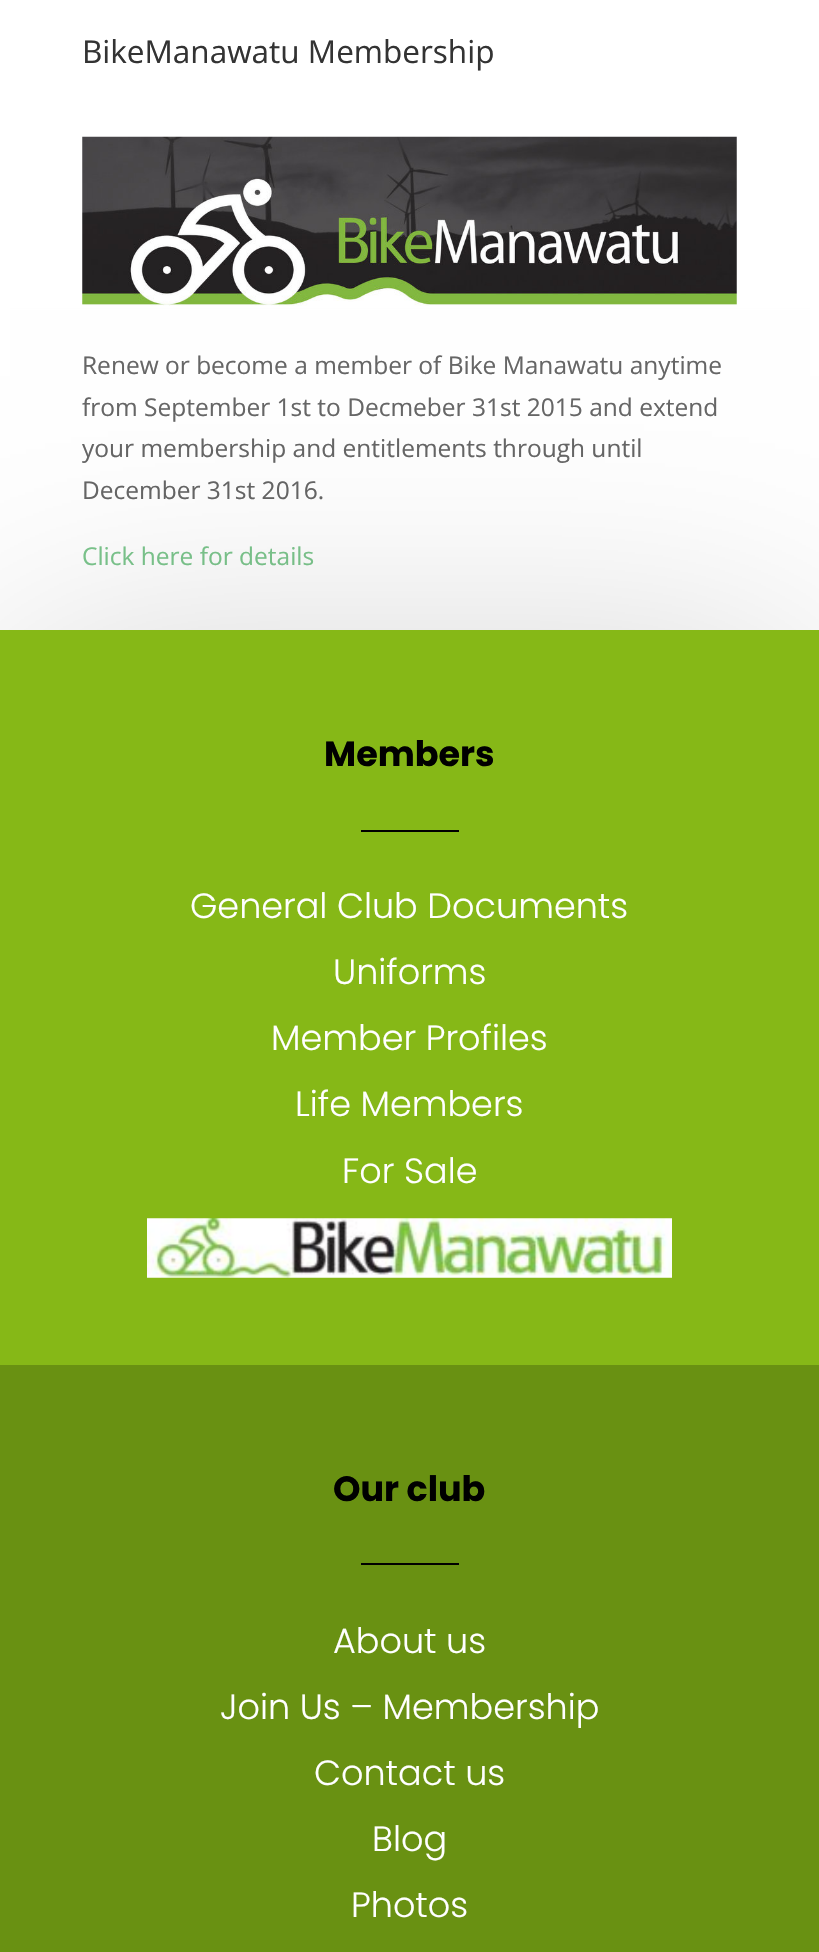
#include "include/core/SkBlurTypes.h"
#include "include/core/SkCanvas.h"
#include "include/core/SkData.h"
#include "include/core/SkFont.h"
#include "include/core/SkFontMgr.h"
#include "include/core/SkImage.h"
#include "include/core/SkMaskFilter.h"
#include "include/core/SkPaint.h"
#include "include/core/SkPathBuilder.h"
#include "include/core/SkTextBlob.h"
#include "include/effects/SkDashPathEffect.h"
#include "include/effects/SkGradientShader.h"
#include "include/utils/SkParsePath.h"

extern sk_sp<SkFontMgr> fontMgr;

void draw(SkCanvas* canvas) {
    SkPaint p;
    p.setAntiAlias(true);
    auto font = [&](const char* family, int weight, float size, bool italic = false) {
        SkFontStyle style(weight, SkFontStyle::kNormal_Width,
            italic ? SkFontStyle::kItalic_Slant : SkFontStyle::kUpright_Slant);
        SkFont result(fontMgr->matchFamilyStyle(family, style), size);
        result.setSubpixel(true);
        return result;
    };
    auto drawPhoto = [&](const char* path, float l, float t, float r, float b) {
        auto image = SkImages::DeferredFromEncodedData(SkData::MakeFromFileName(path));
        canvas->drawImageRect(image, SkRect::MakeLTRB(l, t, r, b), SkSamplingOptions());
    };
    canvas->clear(0xFFFFFFFF);
    auto font1 = font("Open Sans", 400, 31.5f);
    p.setColor(0xFF333333);
    canvas->drawString("BikeManawatu Membership", 82, 63, font1, p);
    drawPhoto("media/1.png", 82, 136, 737, 306);
    auto font2 = font("Open Sans", 400, 24.5f);
    p.setColor(0xFF666666);
    {
        const struct { const char* s; float x, y; } items[] = {
            {"Renew or become a member of Bike Manawatu anytime", 82, 374},
            {"from September 1st to Decmeber 31st 2015 and extend", 82, 416},
            {"your membership and entitlements through until", 82, 457},
            {"December 31st 2016.", 82, 499},
        };
        for (auto [s, x, y] : items) {
            canvas->drawString(s, x, y, font2, p);
        }
    }
    p.setColor(0xFF7CC68D);
    canvas->drawString("Click here for details", 82, 565, font2, p);
    p.setColor(0x2E000000);
    p.setMaskFilter(SkMaskFilter::MakeBlur(kNormal_SkBlurStyle, 118));
    canvas->drawRect(SkRect::MakeLTRB(11, 662, 809, 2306), p);
    p.setMaskFilter(nullptr);
    p.setColor(0xFF86B817);
    canvas->drawRect(SkRect::MakeLTRB(0, 630, 819, 1365), p);
    auto font3 = font("Poppins", 700, 35);
    p.setColor(0xFF000000);
    canvas->drawString("Members", 324, 766, font3, p);
    canvas->drawRect(SkRect::MakeLTRB(361, 830, 459, 832), p);
    auto font4 = font("Poppins", 300, 35);
    p.setColor(0xFFFFFFFF);
    {
        const struct { const char* s; float x, y; } items[] = {
            {"General Club Documents", 190, 918},
            {"Uniforms", 333, 984},
            {"Member Profiles", 271, 1050},
            {"Life Members", 295, 1116},
            {"For Sale", 342, 1183},
        };
        for (auto [s, x, y] : items) {
            canvas->drawString(s, x, y, font4, p);
        }
    }
    drawPhoto("media/2.png", 147, 1218, 672, 1278);
    p.setColor(0xFF699112);
    canvas->drawRect(SkRect::MakeLTRB(0, 1365, 819, 1952), p);
    p.setColor(0xFF000000);
    canvas->drawString("Our club", 333, 1501, font3, p);
    canvas->drawRect(SkRect::MakeLTRB(361, 1563, 459, 1565), p);
    p.setColor(0xFFFFFFFF);
    {
        const struct { const char* s; float x, y; } items[] = {
            {"About us", 333, 1653},
            {"Join Us – Membership", 220, 1719},
            {"Contact us", 314, 1785},
            {"Blog", 372, 1851},
            {"Photos", 351, 1917},
        };
        for (auto [s, x, y] : items) {
            canvas->drawString(s, x, y, font4, p);
        }
    }
}
